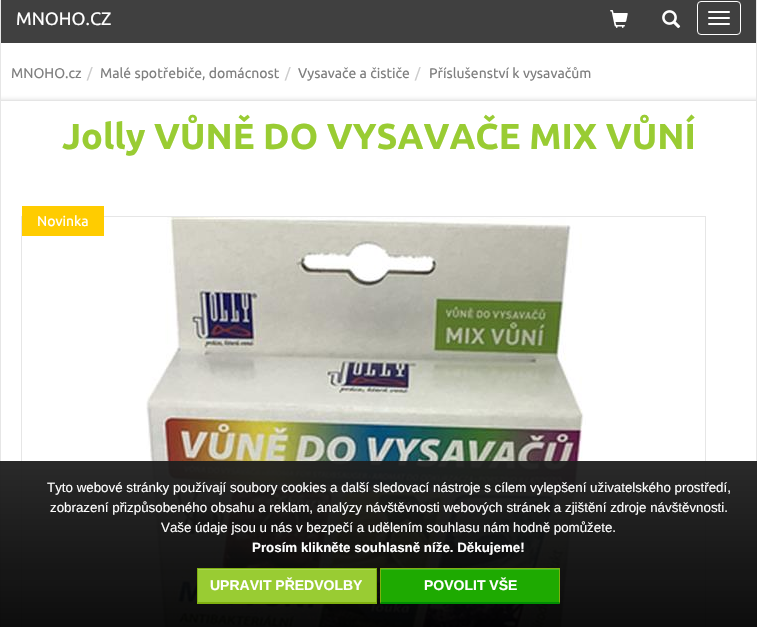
#include "include/core/SkBlurTypes.h"
#include "include/core/SkCanvas.h"
#include "include/core/SkData.h"
#include "include/core/SkFont.h"
#include "include/core/SkFontMgr.h"
#include "include/core/SkImage.h"
#include "include/core/SkMaskFilter.h"
#include "include/core/SkPaint.h"
#include "include/core/SkPathBuilder.h"
#include "include/core/SkTextBlob.h"
#include "include/effects/SkDashPathEffect.h"
#include "include/effects/SkGradientShader.h"
#include "include/utils/SkParsePath.h"

extern sk_sp<SkFontMgr> fontMgr;

void draw(SkCanvas* canvas) {
    SkPaint p;
    p.setAntiAlias(true);
    auto font = [&](const char* family, int weight, float size, bool italic = false) {
        SkFontStyle style(weight, SkFontStyle::kNormal_Width,
            italic ? SkFontStyle::kItalic_Slant : SkFontStyle::kUpright_Slant);
        SkFont result(fontMgr->matchFamilyStyle(family, style), size);
        result.setSubpixel(true);
        return result;
    };
    auto drawPhoto = [&](const char* path, float l, float t, float r, float b) {
        auto image = SkImages::DeferredFromEncodedData(SkData::MakeFromFileName(path));
        canvas->drawImageRect(image, SkRect::MakeLTRB(l, t, r, b), SkSamplingOptions());
    };
    canvas->clear(0xFFFFFFFF);
    {
        const struct { float l, t, r, b; SkColor color; } items[] = {
            {756, 0, 757, 627, 0xFFE6E6E6},
            {0, 0, 1, 627, 0xFFE6E6E6},
            {1, 0, 756, 43, 0xFF404040},
        };
        for (auto [l, t, r, b, color] : items) {
            p.setColor(color);
            canvas->drawRect(SkRect::MakeLTRB(l, t, r, b), p);
        }
    }
    auto font1 = font("Ubuntu", 400, 18);
    p.setColor(0xFFFFFFFF);
    canvas->drawString("MNOHO.CZ", 16, 25, font1, p);
    drawPhoto("media/1.png", 610, 10, 628, 28);
    drawPhoto("media/2.png", 662, 10, 681, 29);
    p.setStyle(SkPaint::kStroke_Style);
    p.setStrokeWidth(1);
    canvas->drawRoundRect(SkRect::MakeLTRB(697.5f, 1.5f, 740.5f, 34.5f), 3.5f, 3.5f, p);
    p.setStyle(SkPaint::kFill_Style);
    canvas->drawRoundRect(SkRect::MakeLTRB(708, 11, 730, 13), 1, 1, p);
    canvas->drawRoundRect(SkRect::MakeLTRB(708, 17, 730, 19), 1, 1, p);
    canvas->drawRoundRect(SkRect::MakeLTRB(708, 23, 730, 25), 1, 1, p);
    drawPhoto("media/3.png", 1, 48, 756, 100);
    p.setColor(0xFFE5E5E5);
    canvas->drawRect(SkRect::MakeLTRB(1, 100, 756, 101), p);
    auto font2 = font("Ubuntu", 400, 14);
    p.setColor(0xFF7F7F7F);
    canvas->drawString("MNOHO.cz", 11, 78, font2, p);
    p.setColor(0xFFCCCCCC);
    canvas->drawString("/", 87, 78, font2, p);
    p.setColor(0xFF7F7F7F);
    canvas->drawString("Malé spotřebiče, domácnost", 100, 78, font2, p);
    p.setColor(0xFFCCCCCC);
    canvas->drawString("/", 285, 78, font2, p);
    p.setColor(0xFF7F7F7F);
    canvas->drawString("Vysavače a čističe", 298, 78, font2, p);
    p.setColor(0xFFCCCCCC);
    canvas->drawString("/", 415, 78, font2, p);
    p.setColor(0xFF7F7F7F);
    canvas->drawString("Příslušenství k vysavačům", 429, 78, font2, p);
    auto font3 = font("Ubuntu", 700, 36);
    p.setColor(0xFF99CC33);
    canvas->drawString("Jolly VŮNĚ DO VYSAVAČE MIX VŮNÍ", 62, 149, font3, p);
    p.setStyle(SkPaint::kStroke_Style);
    p.setColor(0xFFE6E6E6);
    canvas->drawRect(SkRect::MakeLTRB(21.5f, 216.5f, 705.5f, 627.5f), p);
    p.setStyle(SkPaint::kFill_Style);
    p.setColor(0xFFFFCC00);
    canvas->drawRect(SkRect::MakeLTRB(22, 206, 104, 236), p);
    p.setColor(0xFFFFFFFF);
    canvas->drawString("Novinka", 37, 226, font2, p);
    drawPhoto("media/4.png", 146, 217, 586, 627);
    {
        const SkColor colors[] = {0xF21E1E1E, 0xF2000000};
        const float stops[] = {0, 1};
        const SkPoint ends[] = {{379, 461}, {379, 627}};
        p.setShader(SkGradientShader::MakeLinear(ends, colors, stops, 2, SkTileMode::kClamp));
        p.setAlpha(255);
    }
    canvas->drawRect(SkRect::MakeLTRB(0, 461, 757, 627), p);
    auto font4 = font("Liberation Sans", 400, 13.33f);
    p.setShader(nullptr);
    p.setColor(0xFFFFFFFF);
    {
        const struct { const char* s; float x, y; } items[] = {
            {"Tyto webové stránky používají soubory cookies a další sledovací nástroje s cílem vylepšení uživatelského prostředí,", 47, 492},
            {"zobrazení přizpůsobeného obsahu a reklam, analýzy návštěvnosti webových stránek a zjištění zdroje návštěvnosti.", 50, 512},
            {"Vaše údaje jsou u nás v bezpečí a udělením souhlasu nám hodně pomůžete.", 161, 532},
        };
        for (auto [s, x, y] : items) {
            canvas->drawString(s, x, y, font4, p);
        }
    }
    auto font5 = font("Liberation Sans", 700, 13.33f);
    canvas->drawString("Prosím klikněte souhlasně níže. Děkujeme!", 252, 552, font5, p);
    {
        const struct { float l, t, r, b; SkColor color; } items[] = {
            {198, 570, 376, 602, 0xFF99CC33},
            {198, 569, 376, 570, 0xFFA8D452},
            {197, 568, 377, 569, 0xFF7FB010},
            {376, 568, 377, 604, 0xFF7FB010},
            {197, 602, 377, 604, 0xFF7FB010},
            {197, 568, 198, 604, 0xFF7FB010},
        };
        for (auto [l, t, r, b, color] : items) {
            p.setColor(color);
            canvas->drawRect(SkRect::MakeLTRB(l, t, r, b), p);
        }
    }
    auto font6 = font("Liberation Sans", 700, 14);
    p.setColor(0xFFFFFFFF);
    canvas->drawString("UPRAVIT PŘEDVOLBY", 210, 590, font6, p);
    {
        const struct { float l, t, r, b; SkColor color; } items[] = {
            {381, 570, 559, 602, 0xFF1EAA01},
            {381, 569, 559, 570, 0xFF40B727},
            {380, 568, 560, 569, 0xFF7FB010},
        };
        for (auto [l, t, r, b, color] : items) {
            p.setColor(color);
            canvas->drawRect(SkRect::MakeLTRB(l, t, r, b), p);
        }
    }
    canvas->drawPath(SkPathBuilder().moveTo(560, 568).lineTo(560, 604).lineTo(559, 602).lineTo(559, 569).close().detach(), p);
    p.setColor(0xFF008F02);
    canvas->drawPath(SkPathBuilder().moveTo(560, 604).lineTo(380, 604).lineTo(381, 602).lineTo(559, 602).close().detach(), p);
    p.setColor(0xFF7FB010);
    canvas->drawPath(SkPathBuilder().moveTo(380, 604).lineTo(380, 568).lineTo(381, 569).lineTo(381, 602).close().detach(), p);
    p.setColor(0xFFFFFFFF);
    canvas->drawString("POVOLIT VŠE", 424, 590, font6, p);
}
